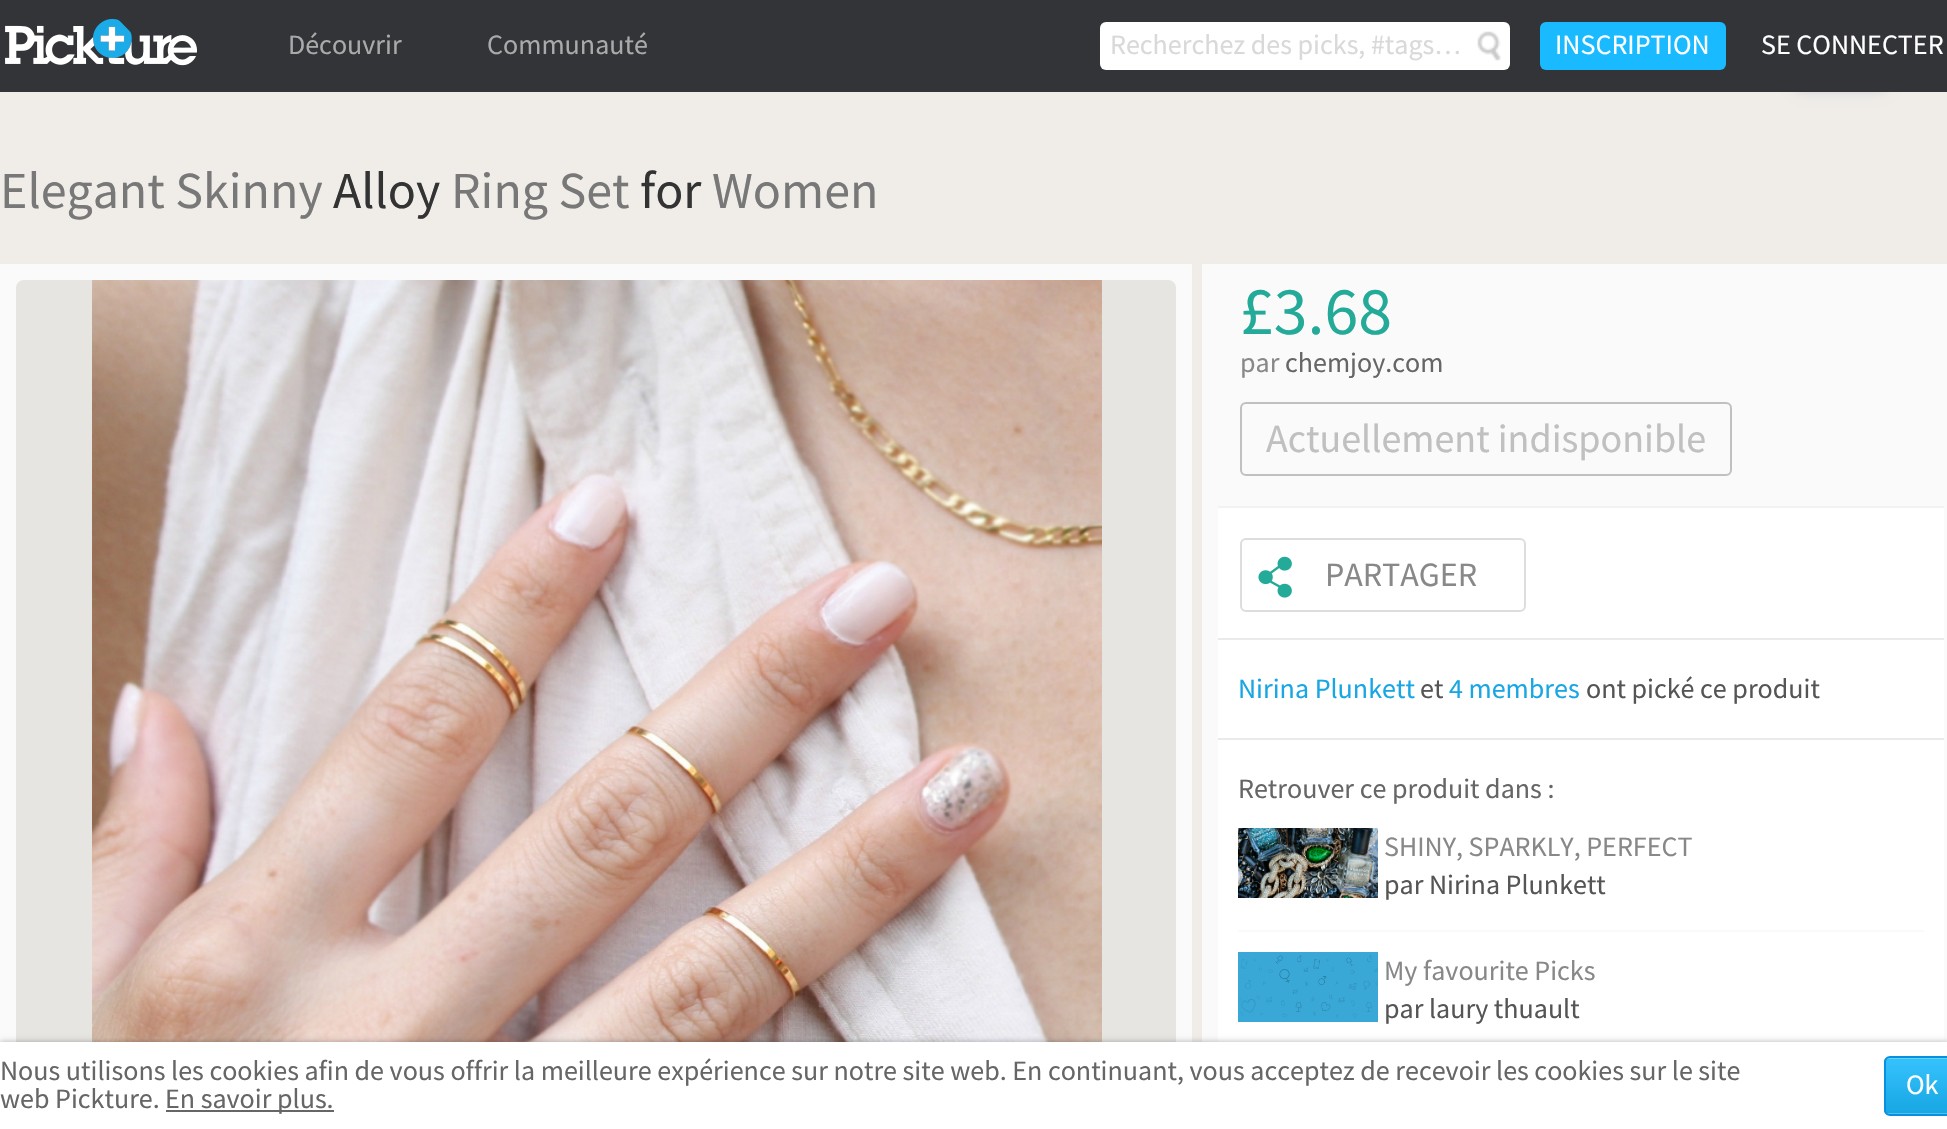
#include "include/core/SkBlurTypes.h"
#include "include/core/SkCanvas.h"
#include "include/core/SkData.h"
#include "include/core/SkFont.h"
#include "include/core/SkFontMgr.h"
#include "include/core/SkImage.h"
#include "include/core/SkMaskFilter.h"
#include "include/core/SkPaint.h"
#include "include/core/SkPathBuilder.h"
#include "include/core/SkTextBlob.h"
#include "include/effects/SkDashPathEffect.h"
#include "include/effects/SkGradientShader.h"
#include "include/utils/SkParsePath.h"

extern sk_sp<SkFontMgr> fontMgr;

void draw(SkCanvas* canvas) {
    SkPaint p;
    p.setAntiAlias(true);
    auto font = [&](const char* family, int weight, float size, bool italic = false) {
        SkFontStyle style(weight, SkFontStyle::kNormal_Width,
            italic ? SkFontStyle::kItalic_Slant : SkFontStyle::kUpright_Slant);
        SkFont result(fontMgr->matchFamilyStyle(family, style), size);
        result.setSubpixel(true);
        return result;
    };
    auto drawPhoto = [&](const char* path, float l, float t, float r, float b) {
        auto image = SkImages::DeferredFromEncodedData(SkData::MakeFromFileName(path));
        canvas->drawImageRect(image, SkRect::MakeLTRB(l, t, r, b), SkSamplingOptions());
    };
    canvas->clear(0xFFF0EDE9);
    p.setColor(0xFFCCCCCC);
    p.setMaskFilter(SkMaskFilter::MakeBlur(kNormal_SkBlurStyle, 6));
    canvas->drawRect(SkRect::MakeLTRB(1796, 0, 1886, 90), p);
    p.setMaskFilter(nullptr);
    p.setColor(0xFF333438);
    canvas->drawRect(SkRect::MakeLTRB(0, 0, 1947, 92), p);
    drawPhoto("media/1.png", 5, 19, 197, 66);
    auto font1 = font("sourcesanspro", 400, 28);
    p.setColor(0xFFAAAAAA);
    canvas->drawString("Découvrir", 288, 54, font1, p);
    canvas->drawString("Communauté", 487, 54, font1, p);
    p.setColor(0xFFFFFFFF);
    canvas->drawRoundRect(SkRect::MakeLTRB(1100, 22, 1510, 70), 6, 6, p);
    p.setColor(0xFFD9D9D9);
    canvas->drawString("Recherchez des picks, #tags…", 1110, 54, font1, p);
    drawPhoto("media/2.png", 1477, 31, 1501, 61);
    p.setColor(0xFF19BAFF);
    canvas->drawRoundRect(SkRect::MakeLTRB(1540, 22, 1726, 70), 6, 6, p);
    p.setColor(0xFFFFFFFF);
    canvas->drawString("INSCRIPTION", 1555, 54, font1, p);
    canvas->drawString("SE CONNECTER", 1761, 54, font1, p);
    auto font2 = font("sourcesanspro", 400, 52);
    p.setColor(0xFF787878);
    canvas->drawString("Elegant Skinny", 0, 208, font2, p);
    p.setColor(0xFF333333);
    canvas->drawString("Alloy", 333, 208, font2, p);
    p.setColor(0xFF787878);
    canvas->drawString("Ring Set", 451, 208, font2, p);
    p.setColor(0xFF333333);
    canvas->drawString("for", 640, 208, font2, p);
    p.setColor(0xFF787878);
    canvas->drawString("Women", 712, 208, font2, p);
    p.setColor(0xFFFAFAFA);
    canvas->drawRect(SkRect::MakeLTRB(0, 264, 1192, 1042), p);
    p.setColor(0xFFE7E5E2);
    canvas->drawRoundRect(SkRect::MakeLTRB(16, 280, 1176, 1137), 8, 8, p);
    drawPhoto("media/3.png", 92, 280, 1102, 1042);
    p.setColor(0xFFFAFAFA);
    canvas->drawRect(SkRect::MakeLTRB(1202, 264, 1947, 1042), p);
    auto font3 = font("sourcesanspro", 400, 68);
    p.setColor(0xFF24AA98);
    canvas->drawString("£3.68", 1240, 334, font3, p);
    p.setColor(0xFF888888);
    canvas->drawString("par", 1240, 372, font1, p);
    p.setColor(0xFF666666);
    canvas->drawString("chemjoy.com", 1285, 372, font1, p);
    p.setStyle(SkPaint::kStroke_Style);
    p.setStrokeWidth(2);
    p.setColor(0xFFC0C0C0);
    canvas->drawRoundRect(SkRect::MakeLTRB(1241, 403, 1731, 475), 5, 5, p);
    auto font4 = font("sourcesanspro", 400, 40);
    p.setStyle(SkPaint::kFill_Style);
    canvas->drawString("Actuellement indisponible", 1266, 452, font4, p);
    {
        const struct { float l, t, r, b; SkColor color; } items[] = {
            {1218, 506, 1944, 508, 0xFFF2F2F2},
            {1218, 508, 1944, 638, 0xFFFFFFFF},
            {1218, 638, 1944, 640, 0xFFEAEAEA},
        };
        for (auto [l, t, r, b, color] : items) {
            p.setColor(color);
            canvas->drawRect(SkRect::MakeLTRB(l, t, r, b), p);
        }
    }
    drawPhoto("media/4.png", 1258, 556, 1292, 598);
    p.setStyle(SkPaint::kStroke_Style);
    p.setColor(0xFFDDDDDD);
    canvas->drawRoundRect(SkRect::MakeLTRB(1241, 539, 1525, 611), 5, 5, p);
    auto font5 = font("sourcesanspro", 400, 34);
    p.setStyle(SkPaint::kFill_Style);
    p.setColor(0xFF888888);
    canvas->drawString("PARTAGER", 1325, 586, font5, p);
    p.setColor(0xFFFFFFFF);
    canvas->drawRect(SkRect::MakeLTRB(1218, 640, 1944, 738), p);
    p.setColor(0xFFEAEAEA);
    canvas->drawRect(SkRect::MakeLTRB(1218, 738, 1944, 740), p);
    p.setColor(0xFF18A7E3);
    canvas->drawString("Nirina Plunkett", 1238, 698, font1, p);
    p.setColor(0xFF555555);
    canvas->drawString("et", 1420, 698, font1, p);
    p.setColor(0xFF18A7E3);
    canvas->drawString("4 membres", 1449, 698, font1, p);
    p.setColor(0xFF555555);
    canvas->drawString("ont pické ce produit", 1586, 698, font1, p);
    p.setColor(0xFFFFFFFF);
    canvas->drawRect(SkRect::MakeLTRB(1218, 740, 1944, 1042), p);
    p.setColor(0xFF666666);
    canvas->drawString("Retrouver ce produit dans :", 1238, 798, font1, p);
    p.setColor(0xFFFAFAFA);
    canvas->drawRect(SkRect::MakeLTRB(1238, 930, 1924, 932), p);
    drawPhoto("media/5.png", 1238, 828, 1378, 898);
    p.setColor(0xFF888888);
    canvas->drawString("SHINY, SPARKLY, PERFECT", 1384, 856, font1, p);
    p.setColor(0xFF555555);
    canvas->drawString("par Nirina Plunkett", 1384, 894, font1, p);
    drawPhoto("media/6.png", 1238, 952, 1378, 1022);
    p.setColor(0xFF888888);
    canvas->drawString("My favourite Picks", 1384, 980, font1, p);
    p.setColor(0xFF555555);
    canvas->drawString("par laury thuault", 1384, 1018, font1, p);
    p.setColor(0x4D000000);
    p.setMaskFilter(SkMaskFilter::MakeBlur(kNormal_SkBlurStyle, 3));
    canvas->drawRect(SkRect::MakeLTRB(0, 1042, 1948, 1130), p);
    p.setMaskFilter(nullptr);
    p.setColor(0xFFFFFFFF);
    canvas->drawRect(SkRect::MakeLTRB(0, 1042, 1947, 1129), p);
    p.setColor(0xFF666666);
    canvas->drawString("Nous utilisons les cookies afin de vous offrir la meilleure expérience sur notre site web. En continuant, vous acceptez de recevoir les cookies sur le site", 0, 1080, font1, p);
    canvas->drawString("web Pickture.", 0, 1108, font1, p);
    canvas->drawRect(SkRect::MakeLTRB(166, 1110, 334, 1112), p);
    canvas->drawString("En savoir plus.", 165, 1108, font1, p);
    drawPhoto("media/7.png", 1884, 1057, 1947, 1115);
    p.setStyle(SkPaint::kStroke_Style);
    p.setColor(0xFF0790DF);
    canvas->drawRoundRect(SkRect::MakeLTRB(1885, 1057, 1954, 1115), 5, 5, p);
    p.setStyle(SkPaint::kFill_Style);
    p.setColor(0xFFFFFFFF);
    canvas->drawString("Ok", 1906, 1094, font1, p);
}
